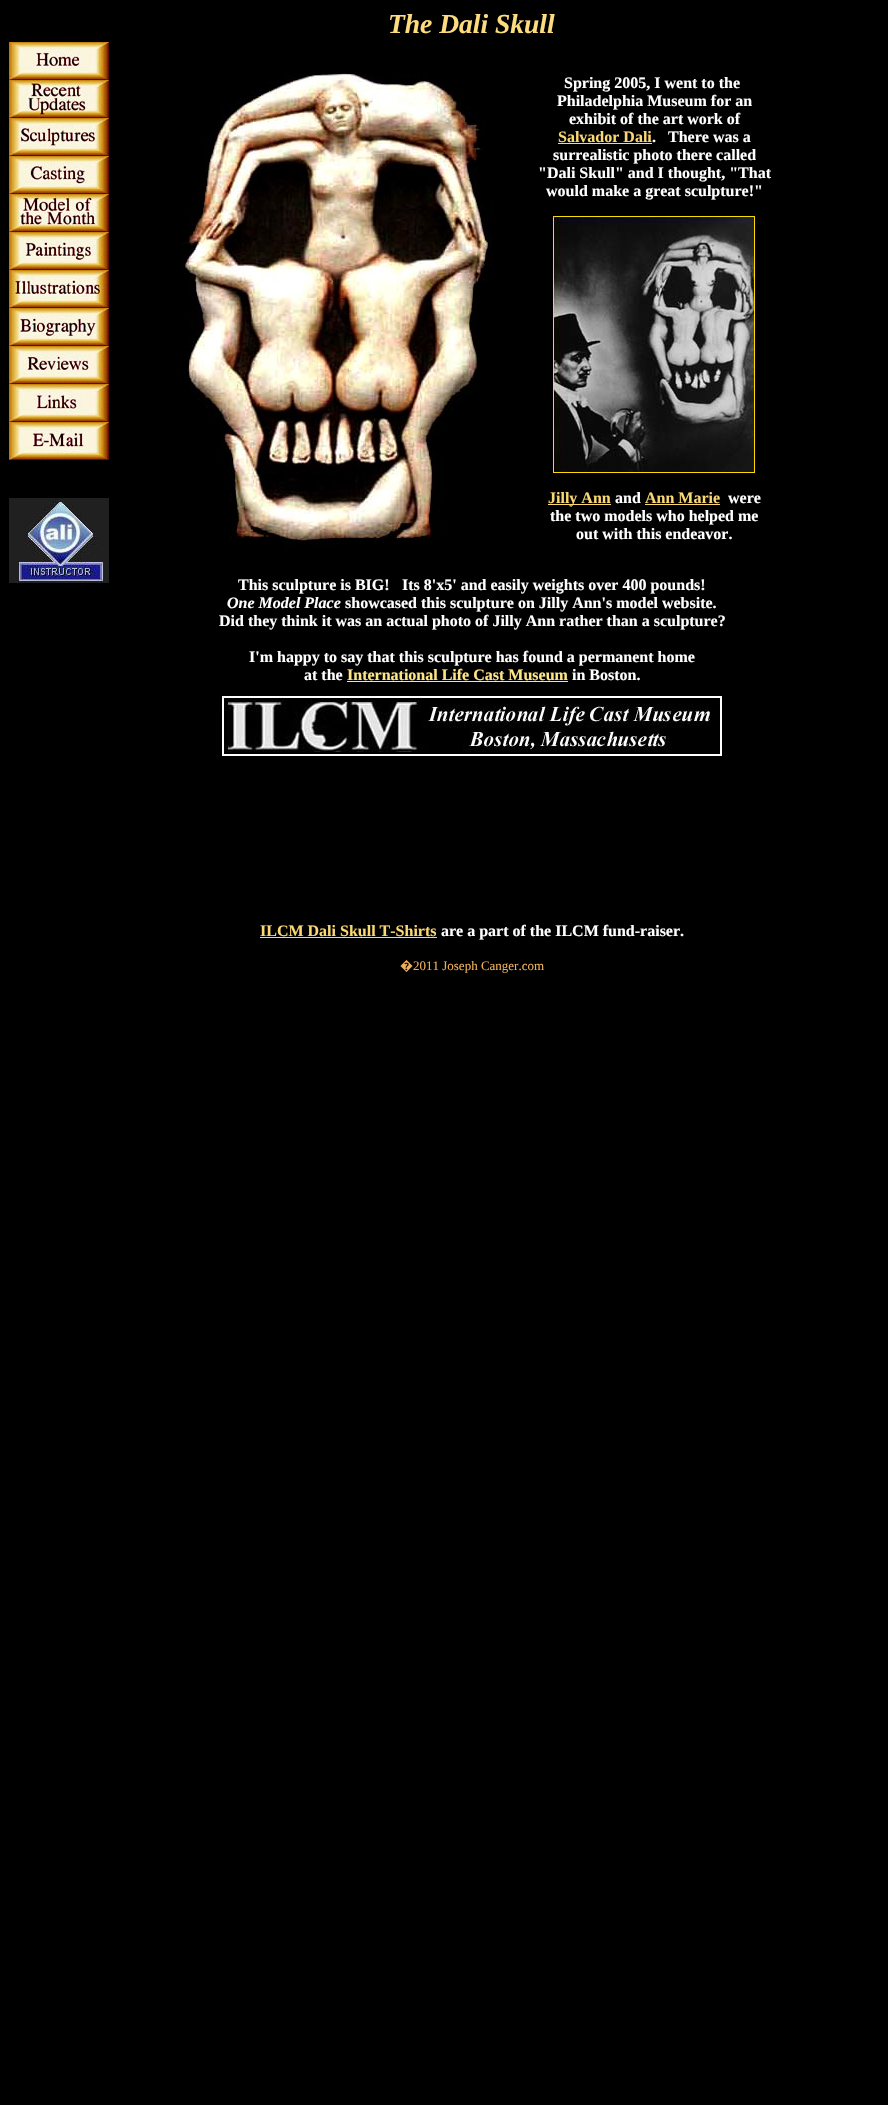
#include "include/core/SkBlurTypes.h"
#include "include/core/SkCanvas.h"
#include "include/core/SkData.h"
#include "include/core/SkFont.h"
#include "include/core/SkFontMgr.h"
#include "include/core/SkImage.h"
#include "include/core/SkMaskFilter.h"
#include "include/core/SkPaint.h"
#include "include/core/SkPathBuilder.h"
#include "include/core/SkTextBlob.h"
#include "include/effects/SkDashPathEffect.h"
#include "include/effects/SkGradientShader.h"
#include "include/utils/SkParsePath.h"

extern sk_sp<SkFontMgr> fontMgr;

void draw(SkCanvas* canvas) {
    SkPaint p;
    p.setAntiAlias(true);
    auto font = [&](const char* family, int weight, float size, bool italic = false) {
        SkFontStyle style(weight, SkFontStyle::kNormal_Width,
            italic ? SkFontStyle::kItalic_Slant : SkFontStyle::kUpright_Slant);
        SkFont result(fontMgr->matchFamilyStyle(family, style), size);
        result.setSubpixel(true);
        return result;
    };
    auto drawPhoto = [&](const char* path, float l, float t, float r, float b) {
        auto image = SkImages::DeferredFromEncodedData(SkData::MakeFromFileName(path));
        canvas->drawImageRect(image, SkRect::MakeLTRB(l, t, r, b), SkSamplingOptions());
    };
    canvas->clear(0xFF000000);
    drawPhoto("media/1.png", 9, 42, 109, 80);
    drawPhoto("media/2.png", 9, 80, 109, 118);
    drawPhoto("media/3.png", 9, 118, 109, 156);
    drawPhoto("media/4.png", 9, 156, 109, 194);
    drawPhoto("media/5.png", 9, 194, 109, 232);
    drawPhoto("media/6.png", 9, 232, 109, 270);
    drawPhoto("media/7.png", 9, 270, 109, 308);
    drawPhoto("media/8.png", 9, 308, 109, 346);
    drawPhoto("media/9.png", 9, 346, 109, 384);
    drawPhoto("media/10.png", 9, 384, 109, 422);
    drawPhoto("media/11.png", 9, 422, 109, 460);
    drawPhoto("media/12.png", 9, 498, 109, 583);
    auto font1 = font("Liberation Serif", 700, 27.5f, true);
    p.setColor(0xFFFCDC7C);
    canvas->drawString("The Dali Skull", 388, 33, font1, p);
    drawPhoto("media/13.png", 181, 73, 493, 548);
    auto font2 = font("Liberation Serif", 700, 16);
    p.setColor(0xFFFFFFFF);
    {
        const struct { const char* s; float x, y; } items[] = {
            {"Spring 2005, I went to the", 564, 88},
            {"Philadelphia Museum for an", 557, 106},
            {"exhibit of the art work of", 569, 124},
        };
        for (auto [s, x, y] : items) {
            canvas->drawString(s, x, y, font2, p);
        }
    }
    p.setColor(0xFFFAD872);
    canvas->drawString("Salvador Dali", 558, 142, font2, p);
    canvas->drawRect(SkRect::MakeLTRB(558, 143, 652, 144), p);
    p.setColor(0xFFFFFFFF);
    {
        const struct { const char* s; float x, y; } items[] = {
            {".   There was a", 652, 142},
            {"surrealistic photo there called", 553, 160},
            {"\"Dali Skull\" and I thought, \"That", 538, 178},
            {"would make a great sculpture!\"", 546, 196},
        };
        for (auto [s, x, y] : items) {
            canvas->drawString(s, x, y, font2, p);
        }
    }
    drawPhoto("media/14.png", 553, 216, 755, 473);
    p.setColor(0xFFFAD872);
    canvas->drawRect(SkRect::MakeLTRB(548, 504, 611, 505), p);
    canvas->drawString("Jilly Ann", 548, 503, font2, p);
    p.setColor(0xFFFFFFFF);
    canvas->drawString("and", 615, 503, font2, p);
    p.setColor(0xFFFAD872);
    canvas->drawString("Ann Marie", 645, 503, font2, p);
    canvas->drawRect(SkRect::MakeLTRB(645, 504, 720, 505), p);
    p.setColor(0xFFFFFFFF);
    {
        const struct { const char* s; float x, y; } items[] = {
            {"were", 728, 503},
            {"the two models who helped me", 550, 521},
            {"out with this endeavor.", 576, 539},
            {"This sculpture is BIG!", 238, 590},
            {"Its 8'x5' and easily weights over 400 pounds!", 402, 590},
        };
        for (auto [s, x, y] : items) {
            canvas->drawString(s, x, y, font2, p);
        }
    }
    auto font3 = font("Liberation Serif", 700, 16, true);
    canvas->drawString("One Model Place", 227, 608, font3, p);
    {
        const struct { const char* s; float x, y; } items[] = {
            {"showcased this sculpture on Jilly Ann's model website.", 345, 608},
            {"Did they think it was an actual photo of Jilly Ann rather than a sculpture?", 219, 626},
            {"I'm happy to say that this sculpture has found a permanent home", 249, 662},
            {"at the", 304, 680},
        };
        for (auto [s, x, y] : items) {
            canvas->drawString(s, x, y, font2, p);
        }
    }
    p.setColor(0xFFFEE685);
    canvas->drawString("International Life Cast Museum", 347, 680, font2, p);
    canvas->drawRect(SkRect::MakeLTRB(347, 681, 568, 682), p);
    p.setColor(0xFFFFFFFF);
    canvas->drawString("in Boston.", 572, 680, font2, p);
    drawPhoto("media/15.png", 222, 696, 722, 756);
    p.setColor(0xFFFAD872);
    canvas->drawString("ILCM Dali Skull T-Shirts", 260, 936, font2, p);
    canvas->drawRect(SkRect::MakeLTRB(260, 937, 437, 938), p);
    p.setColor(0xFFFFFFFF);
    canvas->drawString("are a part of the ILCM fund-raiser.", 441, 936, font2, p);
    auto font4 = font("Noto Sans", 400, 13);
    p.setColor(0xFFEFB05A);
    canvas->drawString("�", 400, 970, font4, p);
    auto font5 = font("Liberation Serif", 400, 13);
    canvas->drawString("2011 Joseph Canger.com", 413, 970, font5, p);
}
